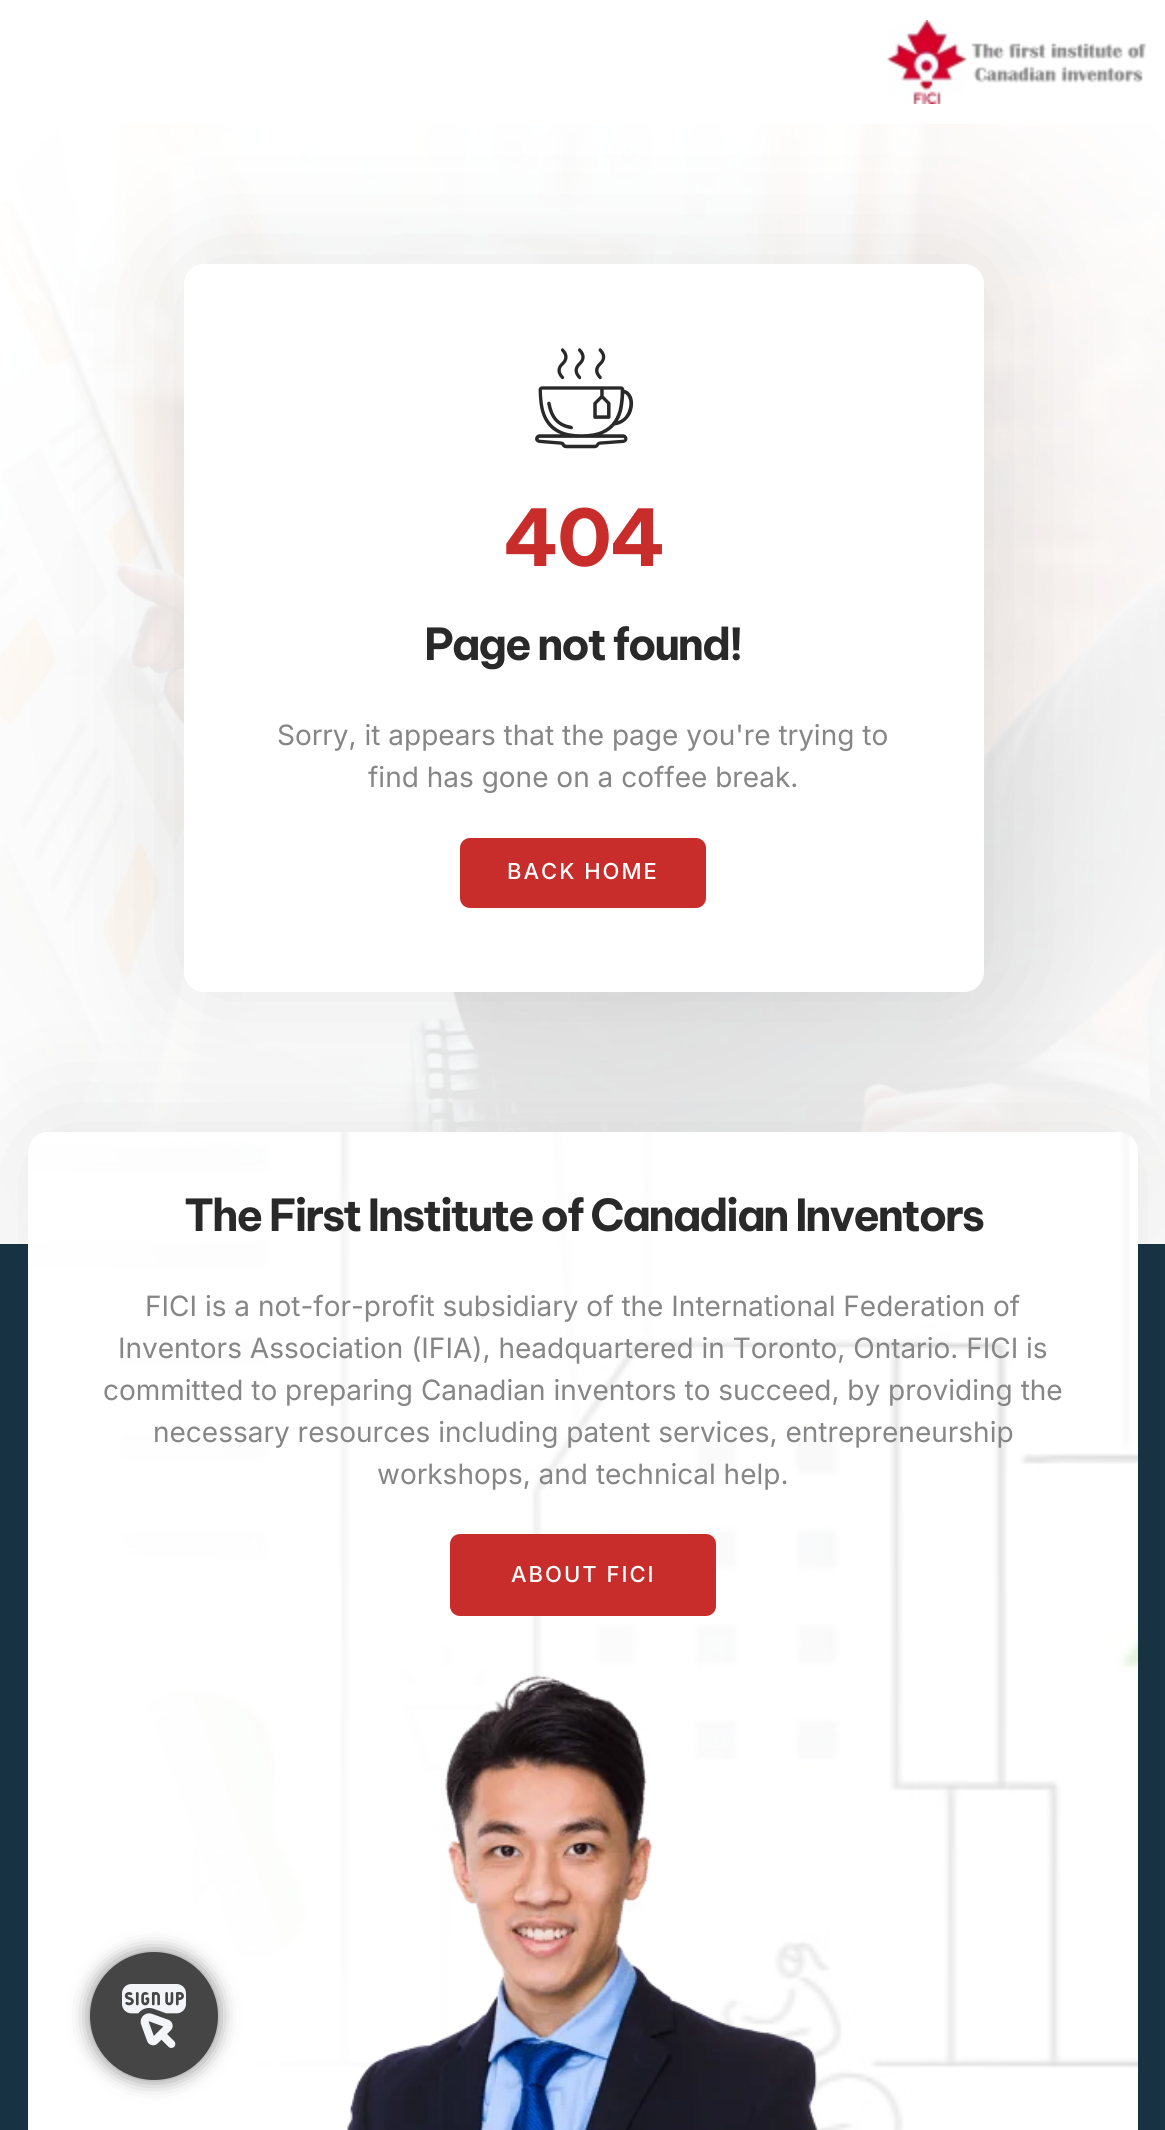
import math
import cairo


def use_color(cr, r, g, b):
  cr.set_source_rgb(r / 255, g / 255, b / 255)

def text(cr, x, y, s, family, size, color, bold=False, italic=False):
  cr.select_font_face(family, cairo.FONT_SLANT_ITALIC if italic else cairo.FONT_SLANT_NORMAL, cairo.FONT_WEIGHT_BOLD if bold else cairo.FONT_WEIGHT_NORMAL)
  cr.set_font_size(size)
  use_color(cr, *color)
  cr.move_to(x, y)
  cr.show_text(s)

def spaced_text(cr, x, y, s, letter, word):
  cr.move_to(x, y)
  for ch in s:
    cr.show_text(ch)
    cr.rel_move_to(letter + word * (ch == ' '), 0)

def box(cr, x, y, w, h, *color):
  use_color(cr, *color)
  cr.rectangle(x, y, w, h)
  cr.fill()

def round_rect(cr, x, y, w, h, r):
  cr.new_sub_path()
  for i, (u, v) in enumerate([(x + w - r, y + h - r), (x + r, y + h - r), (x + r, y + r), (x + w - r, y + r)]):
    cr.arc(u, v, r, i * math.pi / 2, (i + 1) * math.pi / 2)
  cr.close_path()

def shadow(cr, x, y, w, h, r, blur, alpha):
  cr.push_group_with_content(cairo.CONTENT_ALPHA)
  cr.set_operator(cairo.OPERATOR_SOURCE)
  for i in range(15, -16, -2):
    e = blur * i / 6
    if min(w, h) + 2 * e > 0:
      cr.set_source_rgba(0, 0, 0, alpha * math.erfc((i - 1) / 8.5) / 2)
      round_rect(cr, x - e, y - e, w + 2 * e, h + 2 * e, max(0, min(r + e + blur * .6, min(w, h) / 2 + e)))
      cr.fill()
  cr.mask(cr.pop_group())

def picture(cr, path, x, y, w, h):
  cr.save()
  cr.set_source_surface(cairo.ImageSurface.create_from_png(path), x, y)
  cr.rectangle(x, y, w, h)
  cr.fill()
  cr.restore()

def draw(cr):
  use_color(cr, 255, 255, 255)
  cr.paint()
  picture(cr, "img_01.png", 887, 20, 259, 84)
  picture(cr, "img_02.png", 0, 124, 1165, 1120)
  use_color(cr, 0, 0, 0)
  shadow(cr, 184, 264, 800, 728, 20, 60, 0.1)
  use_color(cr, 255, 255, 255)
  round_rect(cr, 184, 264, 800, 728, 20)
  cr.fill()
  picture(cr, "img_03.png", 535, 348, 99, 101)
  use_color(cr, 200, 45, 43)
  round_rect(cr, 460, 838, 246, 70, 10)
  cr.fill()
  box(cr, 0, 1244, 1165, 886, 24, 52, 68)
  use_color(cr, 0, 0, 0)
  shadow(cr, 28, 1132, 1110, 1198, 20, 60, 0.1)
  picture(cr, "img_04.png", 28, 1132, 1110, 998)
  gradient = cairo.LinearGradient(-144, 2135, 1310, 1605)
  gradient.add_color_stop_rgba(0.25, 1, 1, 1, 1)
  gradient.add_color_stop_rgba(1, 1, 1, 1, 0.8)
  cr.set_source(gradient)
  round_rect(cr, 28, 1132, 1110, 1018, 20)
  cr.fill()
  use_color(cr, 200, 45, 43)
  round_rect(cr, 450, 1534, 266, 82, 10)
  cr.fill()
  picture(cr, "img_05.png", 347, 1675, 472, 455)
  use_color(cr, 0, 0, 0)
  shadow(cr, 90, 1952, 128, 128, 64, 10, 0.5)
  use_color(cr, 69, 69, 69)
  cr.arc(154, 2016, 64, 0, 2 * math.pi)
  cr.fill()
  picture(cr, "img_06.png", 122, 1984, 64, 64)
  cr.select_font_face("Be Vietnam Pro", cairo.FONT_SLANT_NORMAL, cairo.FONT_WEIGHT_BOLD)
  cr.set_font_size(78)
  use_color(cr, 200, 45, 43)
  spaced_text(cr, 503, 566, "404", -2, 0)
  cr.set_font_size(44)
  use_color(cr, 41, 41, 41)
  spaced_text(cr, 424, 660, "Page not found!", -2.4, 0)
  text(cr, 277, 745, "Sorry, it appears that the page you're trying to", "Inter", 28, (134, 134, 134))
  text(cr, 368, 787, "find has gone on a coffee break.", "Inter", 28, (134, 134, 134))
  cr.select_font_face("Inter Medium")
  cr.set_font_size(22)
  use_color(cr, 255, 255, 255)
  spaced_text(cr, 507, 879, "BACK HOME", 2, 0)
  cr.select_font_face("Be Vietnam Pro", cairo.FONT_SLANT_NORMAL, cairo.FONT_WEIGHT_BOLD)
  cr.set_font_size(44)
  use_color(cr, 41, 41, 41)
  spaced_text(cr, 184, 1231, "The First Institute of Canadian Inventors", -2.4, 0)
  text(cr, 145, 1316, "FICI is a not-for-profit subsidiary of the International Federation of", "Inter", 28, (134, 134, 134))
  text(cr, 118, 1358, "Inventors Association (IFIA), headquartered in Toronto, Ontario. FICI is", "Inter", 28, (134, 134, 134))
  text(cr, 103, 1400, "committed to preparing Canadian inventors to succeed, by providing the", "Inter", 28, (134, 134, 134))
  text(cr, 153, 1442, "necessary resources including patent services, entrepreneurship", "Inter", 28, (134, 134, 134))
  text(cr, 377, 1484, "workshops, and technical help.", "Inter", 28, (134, 134, 134))
  cr.select_font_face("Inter Medium")
  cr.set_font_size(22)
  use_color(cr, 255, 255, 255)
  spaced_text(cr, 511, 1582, "ABOUT FICI", 2, 0)


surface = cairo.ImageSurface(cairo.FORMAT_RGB24, 1165, 2130)
cr = cairo.Context(surface)
options = cairo.FontOptions()
options.set_hint_metrics(cairo.HINT_METRICS_OFF)
options.set_hint_style(cairo.HINT_STYLE_NONE)
cr.set_font_options(options)
cr.set_miter_limit(4)
draw(cr)
surface.write_to_png("out.png")
